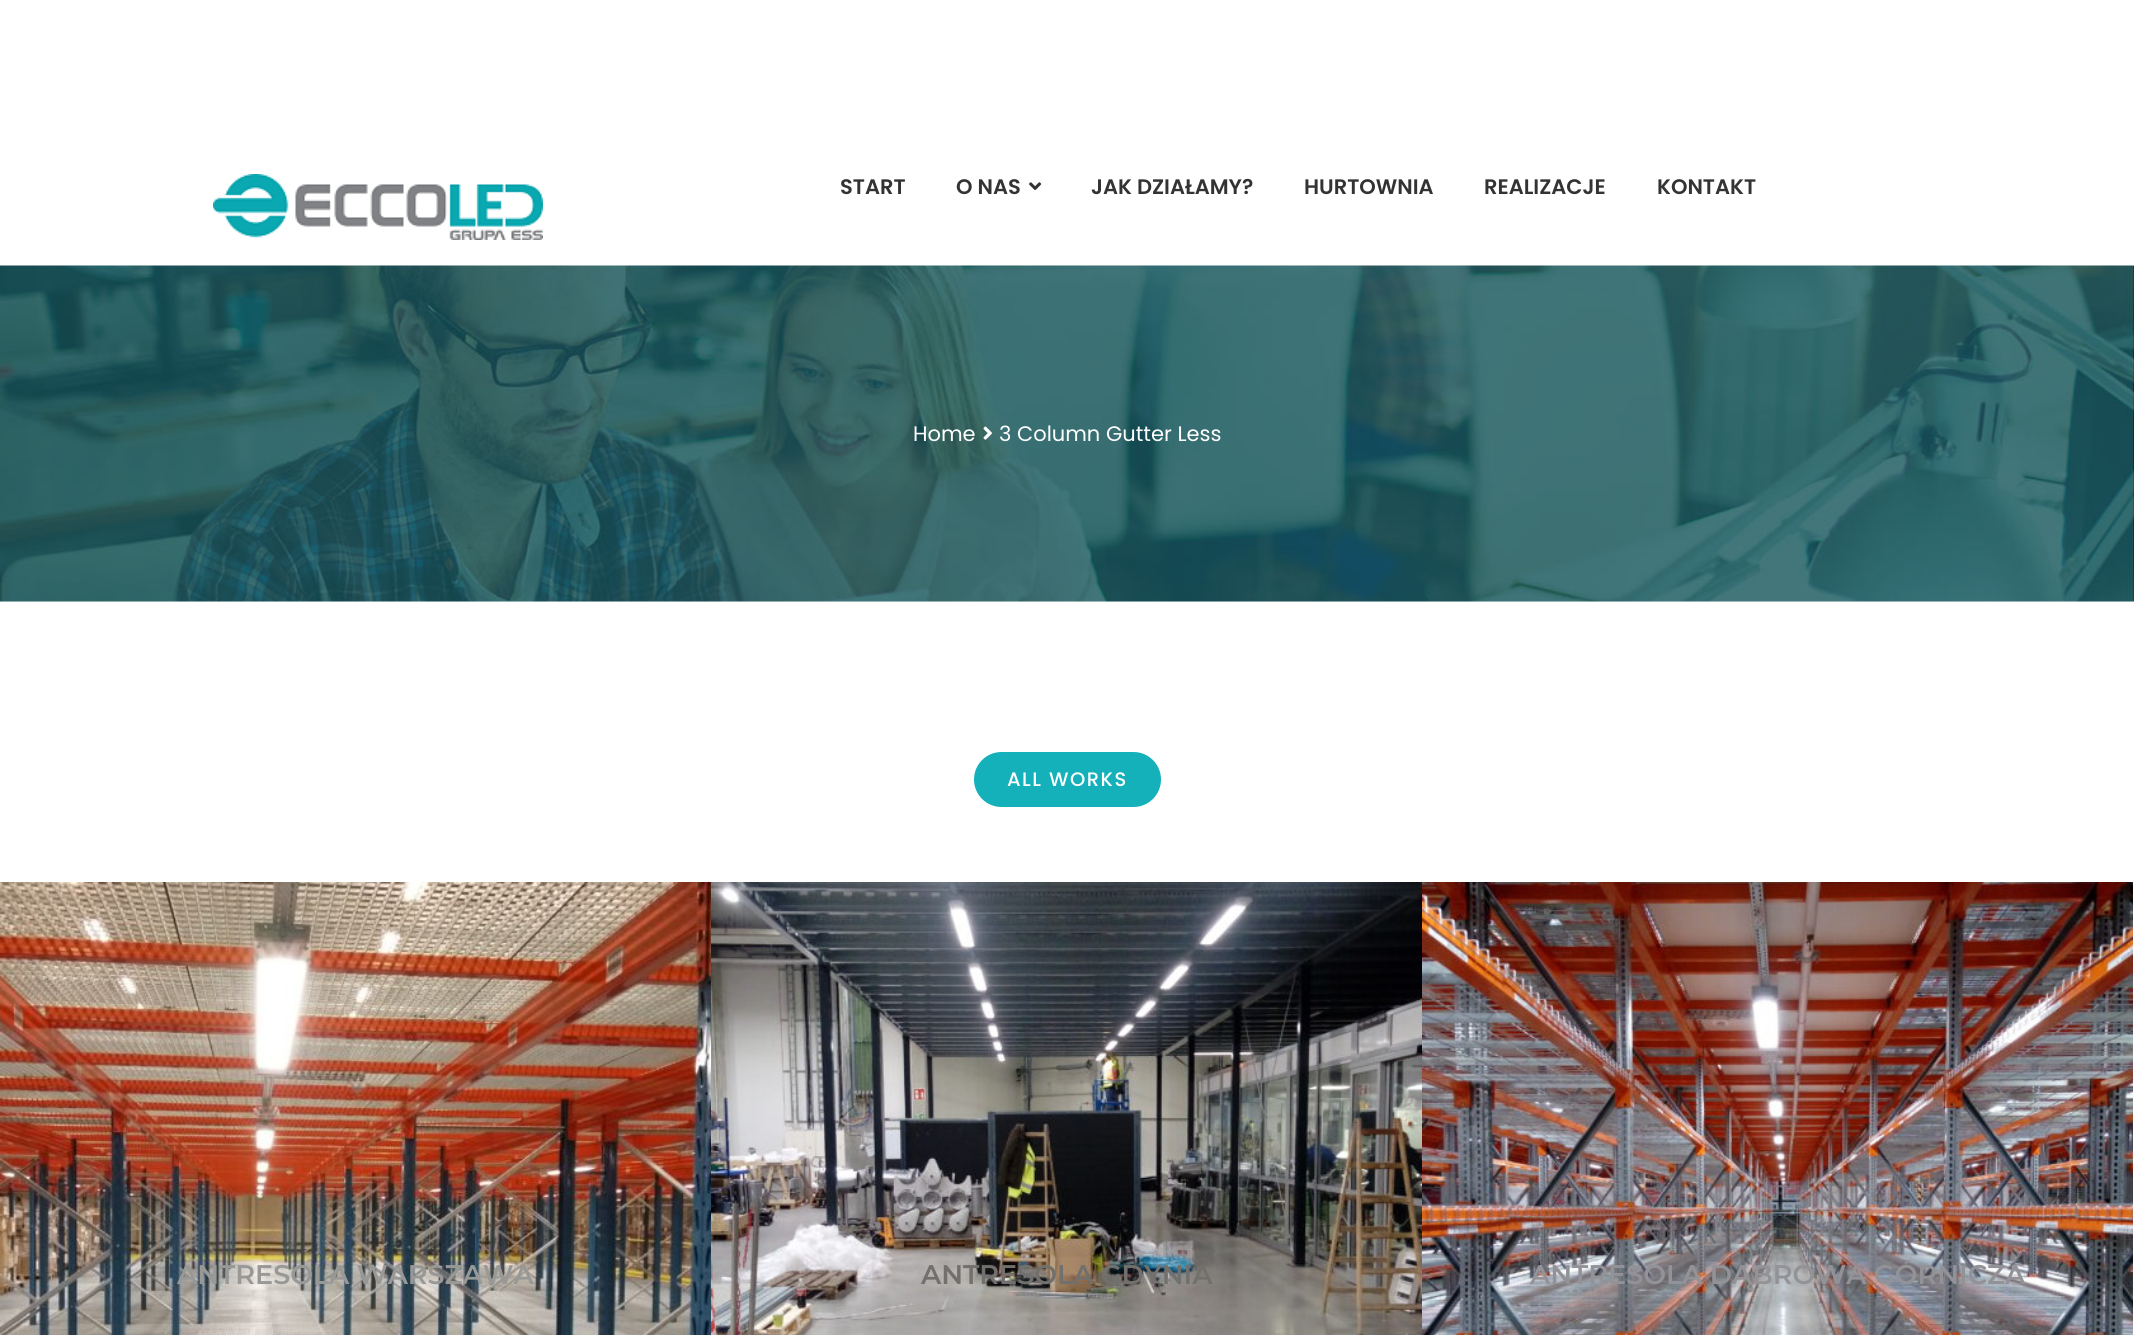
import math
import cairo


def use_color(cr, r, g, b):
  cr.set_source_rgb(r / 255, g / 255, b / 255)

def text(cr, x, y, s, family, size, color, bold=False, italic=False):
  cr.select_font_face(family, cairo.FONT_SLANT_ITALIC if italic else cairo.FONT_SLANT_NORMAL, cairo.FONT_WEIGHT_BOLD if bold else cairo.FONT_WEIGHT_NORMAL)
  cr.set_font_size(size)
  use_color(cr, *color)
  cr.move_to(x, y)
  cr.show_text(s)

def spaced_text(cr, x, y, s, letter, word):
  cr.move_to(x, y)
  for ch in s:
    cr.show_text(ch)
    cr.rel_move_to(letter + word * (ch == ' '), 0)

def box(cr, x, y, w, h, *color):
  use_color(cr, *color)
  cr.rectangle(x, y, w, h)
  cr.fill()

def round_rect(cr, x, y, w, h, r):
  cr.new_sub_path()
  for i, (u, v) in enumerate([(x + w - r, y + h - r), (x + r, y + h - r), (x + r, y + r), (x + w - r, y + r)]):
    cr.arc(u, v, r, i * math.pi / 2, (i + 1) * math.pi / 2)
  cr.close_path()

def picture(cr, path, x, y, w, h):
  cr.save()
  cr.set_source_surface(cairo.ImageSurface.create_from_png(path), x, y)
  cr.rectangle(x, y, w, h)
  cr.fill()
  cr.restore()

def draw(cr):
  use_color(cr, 255, 255, 255)
  cr.paint()
  picture(cr, "img_01.png", 213, 174, 330, 66)
  picture(cr, "img_02.png", 1029, 182, 13, 9)
  box(cr, 0, 601, 2134, 1, 247, 247, 247)
  picture(cr, "img_03.png", 0, 265, 2134, 337)
  picture(cr, "img_04.png", 983, 426, 9, 14)
  use_color(cr, 20, 177, 187)
  round_rect(cr, 975, 753, 185, 53, 26.5)
  cr.fill_preserve()
  cr.stroke()
  picture(cr, "img_05.png", 0, 882, 711, 453)
  picture(cr, "img_06.png", 711, 882, 711, 453)
  picture(cr, "img_07.png", 1422, 882, 711, 453)
  text(cr, 840, 194, "START", "Poppins SemiBold", 21, (51, 51, 51))
  text(cr, 956, 194, "O NAS", "Poppins SemiBold", 21, (51, 51, 51))
  text(cr, 1091, 194, "JAK DZIAŁAMY?", "Poppins SemiBold", 21, (51, 51, 51))
  text(cr, 1304, 194, "HURTOWNIA", "Poppins SemiBold", 21, (51, 51, 51))
  text(cr, 1484, 194, "REALIZACJE", "Poppins SemiBold", 21, (51, 51, 51))
  text(cr, 1657, 194, "KONTAKT", "Poppins SemiBold", 21, (51, 51, 51))
  text(cr, 913, 441, "Home", "Poppins", 21, (255, 255, 255))
  text(cr, 999, 441, "3 Column Gutter Less", "Poppins", 21, (255, 255, 255))
  cr.select_font_face("Poppins Medium")
  cr.set_font_size(19.5)
  spaced_text(cr, 1007, 786, "ALL WORKS", 1.5, 0)
  text(cr, 177, 1284, "ANTRESOLA WARSZAWA", "Montserrat SemiBold", 27, (152, 153, 151))
  text(cr, 921, 1284, "ANTRESOLA GDYNIA", "Montserrat SemiBold", 27, (114, 112, 108))
  text(cr, 1530, 1284, "ANTRESOLA DĄBROWA GÓRNICZA", "Montserrat SemiBold", 27, (146, 146, 151))


surface = cairo.ImageSurface(cairo.FORMAT_RGB24, 2134, 1335)
cr = cairo.Context(surface)
options = cairo.FontOptions()
options.set_hint_metrics(cairo.HINT_METRICS_OFF)
options.set_hint_style(cairo.HINT_STYLE_NONE)
cr.set_font_options(options)
cr.set_miter_limit(4)
draw(cr)
surface.write_to_png("out.png")
